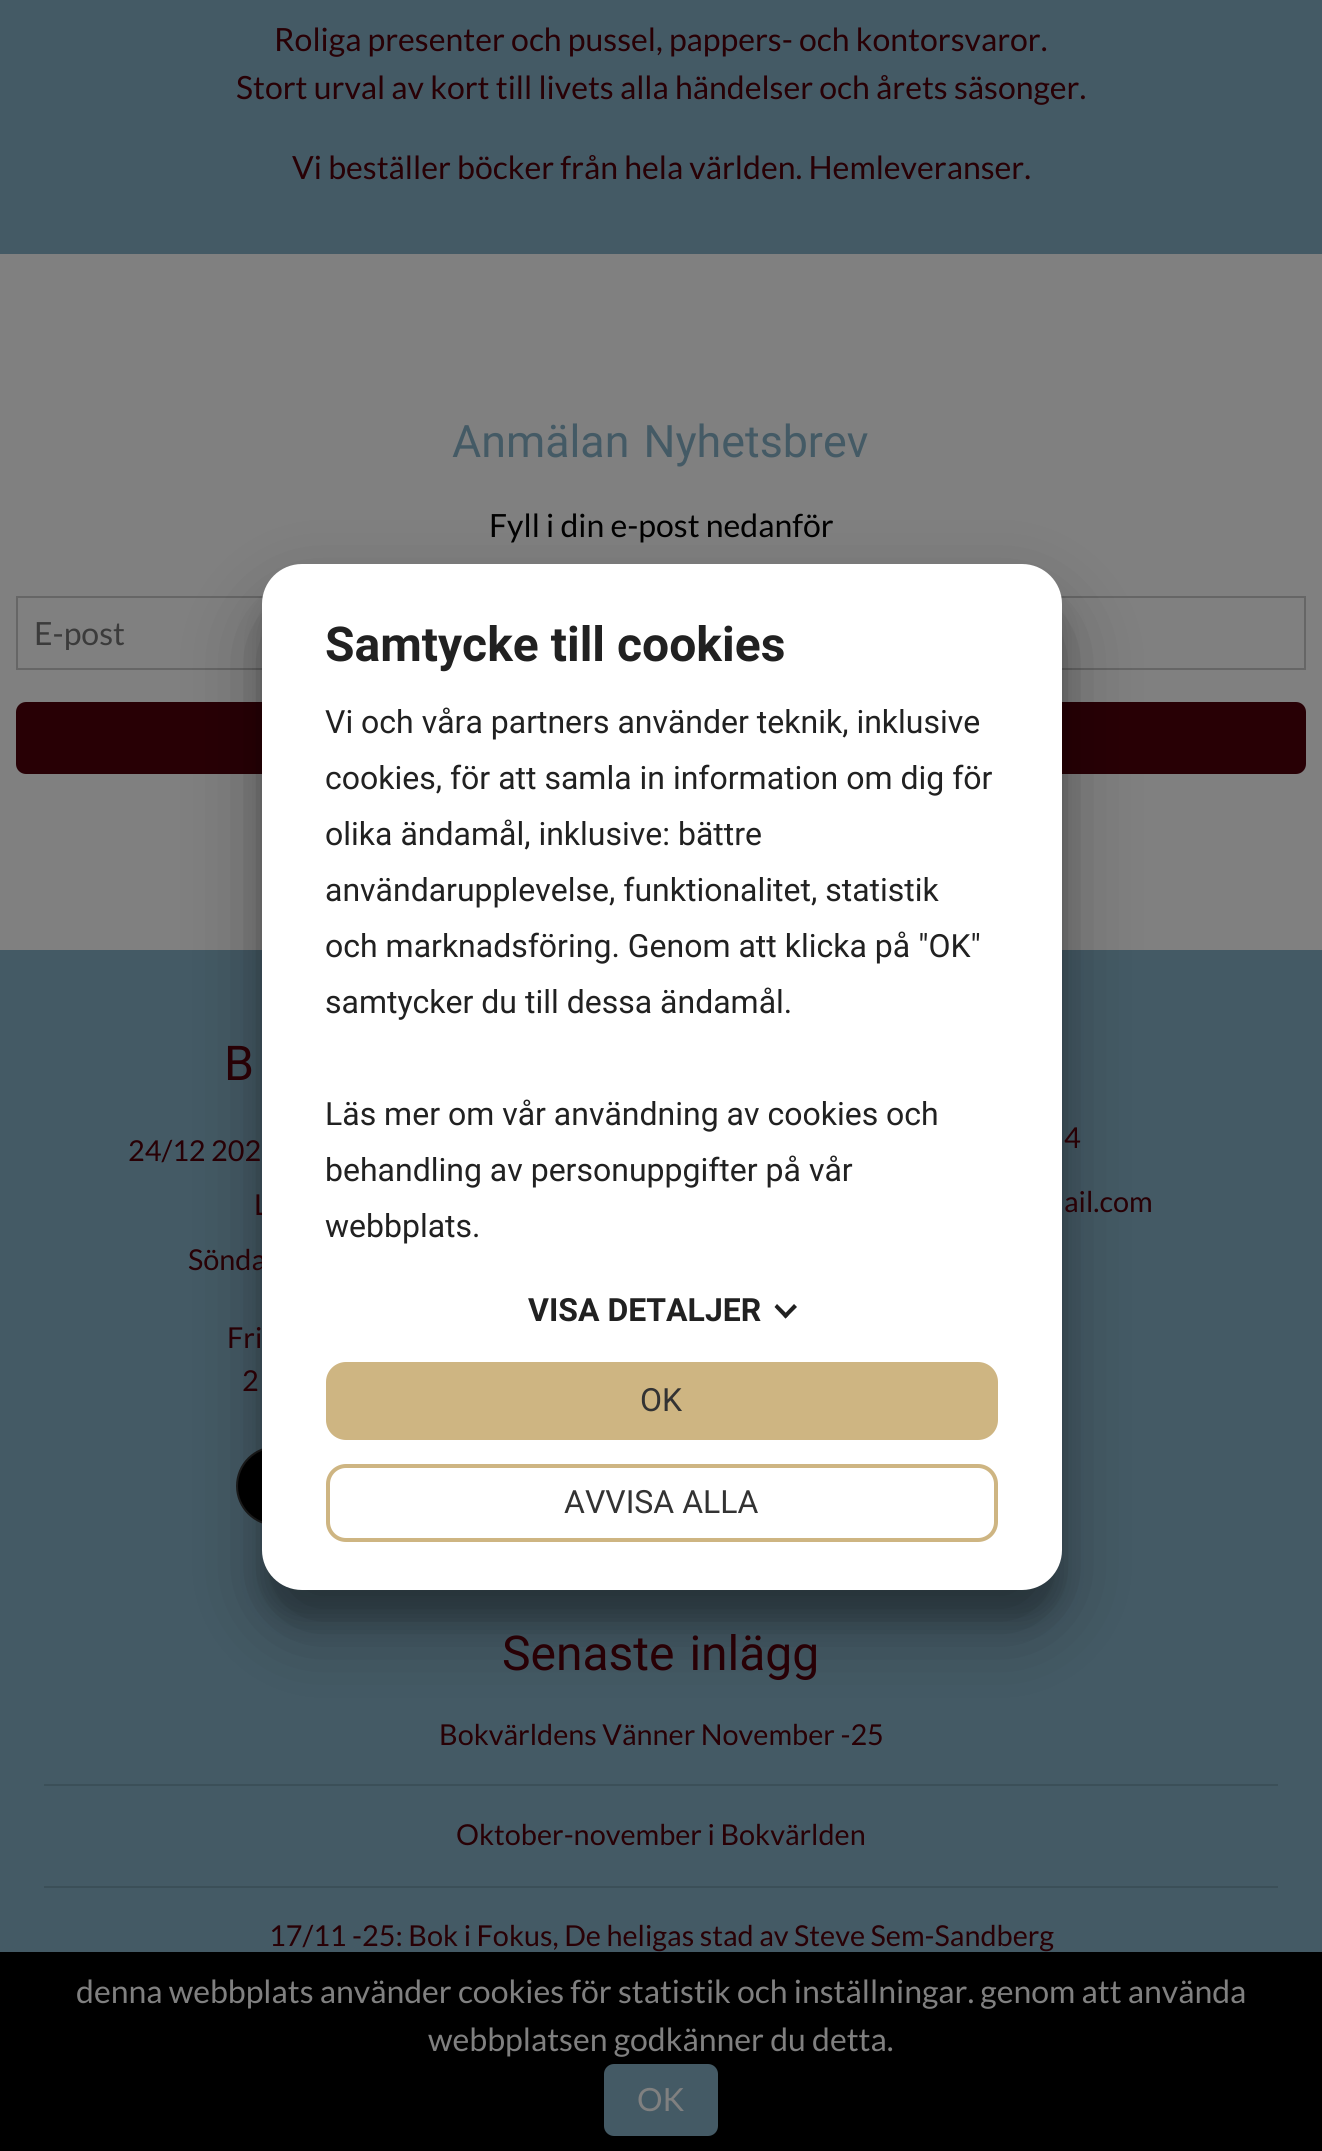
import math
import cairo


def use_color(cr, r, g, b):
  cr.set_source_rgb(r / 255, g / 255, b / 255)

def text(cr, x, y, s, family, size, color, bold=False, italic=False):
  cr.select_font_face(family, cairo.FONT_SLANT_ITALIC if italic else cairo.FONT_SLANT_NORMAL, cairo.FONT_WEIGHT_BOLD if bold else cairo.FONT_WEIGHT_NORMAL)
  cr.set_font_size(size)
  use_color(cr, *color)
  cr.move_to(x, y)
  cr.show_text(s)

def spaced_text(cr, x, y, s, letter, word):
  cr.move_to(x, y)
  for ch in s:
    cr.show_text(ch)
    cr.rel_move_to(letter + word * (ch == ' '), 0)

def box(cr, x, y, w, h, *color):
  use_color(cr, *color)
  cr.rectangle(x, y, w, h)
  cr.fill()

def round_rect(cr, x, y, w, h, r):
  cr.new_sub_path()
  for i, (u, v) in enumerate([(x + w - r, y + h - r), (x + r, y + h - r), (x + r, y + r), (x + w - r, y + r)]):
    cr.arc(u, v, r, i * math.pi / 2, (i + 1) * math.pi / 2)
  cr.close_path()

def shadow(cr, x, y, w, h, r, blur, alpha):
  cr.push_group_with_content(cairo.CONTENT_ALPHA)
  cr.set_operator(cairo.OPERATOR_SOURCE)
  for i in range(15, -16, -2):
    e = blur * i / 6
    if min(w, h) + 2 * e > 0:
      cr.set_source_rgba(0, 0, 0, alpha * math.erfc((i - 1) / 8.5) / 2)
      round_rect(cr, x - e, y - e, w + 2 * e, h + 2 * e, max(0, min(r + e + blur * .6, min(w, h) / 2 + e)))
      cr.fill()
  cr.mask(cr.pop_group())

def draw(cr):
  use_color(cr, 128, 128, 128)
  cr.paint()
  box(cr, 0, 0, 1322, 254, 68, 90, 101)
  cr.rectangle(17, 597, 1288, 72)
  use_color(cr, 102, 102, 102)
  cr.stroke()
  use_color(cr, 40, 0, 5)
  round_rect(cr, 17, 703, 1288, 70, 9)
  cr.fill_preserve()
  cr.stroke()
  box(cr, 0, 950, 1322, 1002, 68, 90, 101)
  use_color(cr, 0, 0, 0)
  cr.arc(276, 1486, 39, 0, 2 * math.pi)
  cr.fill_preserve()
  use_color(cr, 28, 28, 28)
  cr.stroke()
  use_color(cr, 0, 0, 0)
  shadow(cr, 262, 594, 800, 1026, 40, 12, 0.22)
  shadow(cr, 262, 602, 800, 1026, 40, 38, 0.3)
  box(cr, 44, 1784, 1234, 2, 59, 79, 88)
  box(cr, 44, 1886, 1234, 2, 59, 79, 88)
  box(cr, 0, 1952, 1322, 199, 0, 0, 0)
  use_color(cr, 68, 90, 101)
  round_rect(cr, 605, 2065, 112, 70, 9)
  cr.fill_preserve()
  cr.stroke()
  text(cr, 274, 51, "Roliga presenter och pussel, pappers- och kontorsvaror.", "Lato", 32, (40, 0, 5))
  text(cr, 236, 99, "Stort urval av kort till livets alla händelser och årets säsonger.", "Lato", 32, (40, 0, 5))
  text(cr, 292, 179, "Vi beställer böcker från hela världen. Hemleveranser.", "Lato", 32, (40, 0, 5))
  cr.select_font_face("Roboto")
  cr.set_font_size(44.75)
  use_color(cr, 68, 90, 101)
  spaced_text(cr, 452, 457, "Anmälan Nyhetsbrev", 0, 3)
  text(cr, 489, 537, "Fyll i din e-post nedanför", "Lato", 32, (0, 0, 0))
  cr.save()
  cr.rectangle(34, 612, 1254, 38)
  cr.clip()
  text(cr, 34, 645, "E-post", "Lato", 32, (59, 59, 59))
  cr.restore()
  text(cr, 224, 1080, "B", "Roboto", 48, (40, 0, 5))
  text(cr, 128, 1161, "24/12 202", "Lato", 28.8, (40, 0, 5))
  text(cr, 254, 1215, "L", "Lato", 28.8, (40, 0, 5))
  text(cr, 188, 1270, "Sönda", "Lato", 28.8, (40, 0, 5))
  use_color(cr, 255, 255, 255)
  round_rect(cr, 262, 564, 800, 1026, 40)
  cr.fill()
  use_color(cr, 206, 181, 130)
  round_rect(cr, 328, 1364, 668, 74, 18)
  cr.fill_preserve()
  cr.set_line_width(4)
  cr.stroke()
  text(cr, 640, 1411, "OK", "Roboto", 32, (51, 51, 51))
  round_rect(cr, 328, 1466, 668, 74, 18)
  use_color(cr, 206, 181, 130)
  cr.stroke()
  text(cr, 564, 1513, "AVVISA ALLA", "Roboto", 32, (51, 51, 51))
  use_color(cr, 33, 33, 33)
  cr.new_path()
  cr.move_to(794, 1304)
  cr.line_to(797, 1307)
  cr.line_to(785.5, 1318.5)
  cr.line_to(783, 1315.5)
  cr.close_path()
  cr.fill()
  cr.new_path()
  cr.move_to(777, 1304)
  cr.line_to(788.5, 1315.5)
  cr.line_to(785.5, 1318.5)
  cr.line_to(774.5, 1307)
  cr.close_path()
  cr.fill()
  text(cr, 528, 1321, "VISA DETALJER", "Roboto", 32, (33, 33, 33), bold=True)
  text(cr, 325, 1237, "webbplats.", "Roboto", 32, (33, 33, 33))
  text(cr, 325, 1181, "behandling av personuppgifter på vår", "Roboto", 32, (33, 33, 33))
  text(cr, 325, 1125, "Läs mer om vår användning av cookies och", "Roboto", 32, (33, 33, 33))
  text(cr, 325, 1013, "samtycker du till dessa ändamål.", "Roboto", 32, (33, 33, 33))
  text(cr, 325, 957, "och marknadsföring. Genom att klicka på \"OK\"", "Roboto", 32, (33, 33, 33))
  text(cr, 325, 901, "användarupplevelse, funktionalitet, statistik", "Roboto", 32, (33, 33, 33))
  text(cr, 325, 845, "olika ändamål, inklusive: bättre", "Roboto", 32, (33, 33, 33))
  text(cr, 325, 789, "cookies, för att samla in information om dig för", "Roboto", 32, (33, 33, 33))
  text(cr, 325, 733, "Vi och våra partners använder teknik, inklusive", "Roboto", 32, (33, 33, 33))
  text(cr, 325, 661, "Samtycke till cookies", "Roboto", 48, (33, 33, 33), bold=True)
  text(cr, 227, 1348, "Fri", "Lato", 28.8, (40, 0, 5))
  text(cr, 242, 1391, "2", "Lato", 28.8, (40, 0, 5))
  text(cr, 1064, 1148, "4", "Lato", 28.8, (40, 0, 5))
  text(cr, 1064, 1212, "ail.com", "Lato", 28.8, (40, 0, 5))
  cr.select_font_face("Roboto")
  cr.set_font_size(48)
  spaced_text(cr, 502, 1670, "Senaste inlägg", 0, 3)
  text(cr, 439, 1745, "Bokvärldens Vänner November -25", "Lato", 28.8, (40, 0, 5))
  text(cr, 456, 1845, "Oktober-november i Bokvärlden", "Lato", 28.8, (40, 0, 5))
  text(cr, 269, 1946, "17/11 -25: Bok i Fokus, De heligas stad av Steve Sem-Sandberg", "Lato", 28.8, (40, 0, 5))
  text(cr, 76, 2003, "denna webbplats använder cookies för statistik och inställningar. genom att använda", "Lato", 32, (128, 128, 128))
  text(cr, 428, 2051, "webbplatsen godkänner du detta.", "Lato", 32, (128, 128, 128))
  text(cr, 637, 2111, "OK", "Lato", 32, (128, 128, 128))


surface = cairo.ImageSurface(cairo.FORMAT_RGB24, 1322, 2151)
cr = cairo.Context(surface)
options = cairo.FontOptions()
options.set_hint_metrics(cairo.HINT_METRICS_OFF)
options.set_hint_style(cairo.HINT_STYLE_NONE)
cr.set_font_options(options)
cr.set_miter_limit(4)
draw(cr)
surface.write_to_png("out.png")
